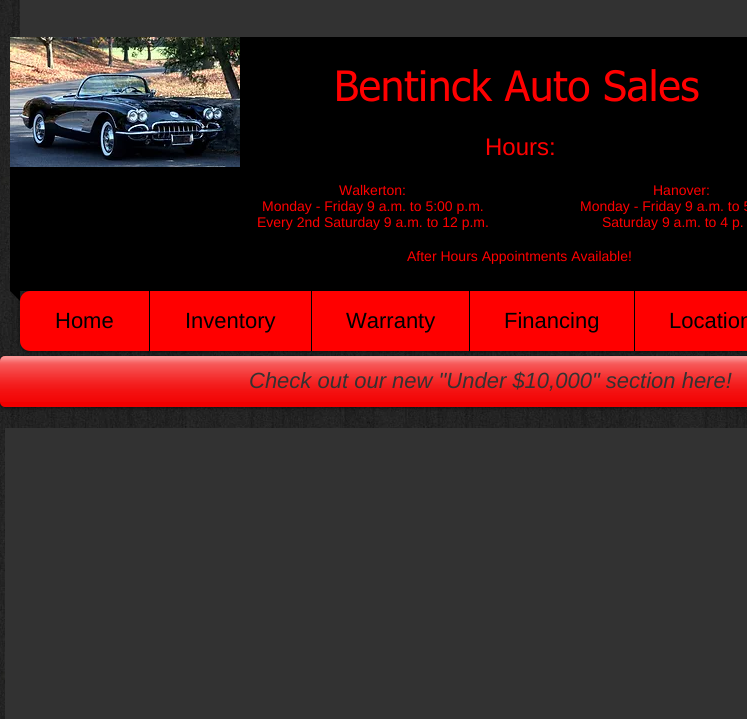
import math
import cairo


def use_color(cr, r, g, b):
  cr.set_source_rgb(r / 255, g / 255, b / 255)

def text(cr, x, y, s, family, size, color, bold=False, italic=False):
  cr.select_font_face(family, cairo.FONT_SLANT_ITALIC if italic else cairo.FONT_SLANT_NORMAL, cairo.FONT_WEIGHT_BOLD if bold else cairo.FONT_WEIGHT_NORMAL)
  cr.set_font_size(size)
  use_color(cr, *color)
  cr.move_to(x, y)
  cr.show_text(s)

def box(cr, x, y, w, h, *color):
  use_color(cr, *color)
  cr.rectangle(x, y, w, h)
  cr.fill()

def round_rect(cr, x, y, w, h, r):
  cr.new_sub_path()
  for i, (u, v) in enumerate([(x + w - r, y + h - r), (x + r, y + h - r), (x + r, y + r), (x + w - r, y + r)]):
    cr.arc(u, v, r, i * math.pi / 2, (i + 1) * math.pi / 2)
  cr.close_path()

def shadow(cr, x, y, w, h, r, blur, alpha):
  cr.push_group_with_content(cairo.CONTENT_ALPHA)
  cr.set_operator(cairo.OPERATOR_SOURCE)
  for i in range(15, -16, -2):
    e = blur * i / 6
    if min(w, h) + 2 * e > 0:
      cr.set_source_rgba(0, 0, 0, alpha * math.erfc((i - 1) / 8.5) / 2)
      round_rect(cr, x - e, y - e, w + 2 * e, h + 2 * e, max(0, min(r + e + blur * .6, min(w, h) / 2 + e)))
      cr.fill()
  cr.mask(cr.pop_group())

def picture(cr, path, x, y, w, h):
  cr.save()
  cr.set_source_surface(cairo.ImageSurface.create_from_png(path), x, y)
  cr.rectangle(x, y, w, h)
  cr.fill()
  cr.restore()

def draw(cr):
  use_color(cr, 255, 255, 255)
  cr.paint()
  picture(cr, "img_01.png", 0, 0, 747, 719)
  box(cr, 20, 0, 727, 37, 50, 50, 50)
  box(cr, 10, 37, 737, 254, 0, 0, 0)
  picture(cr, "img_02.png", 10, 37, 230, 130)
  cr.new_path()
  cr.move_to(10, 291)
  cr.line_to(20, 291)
  cr.line_to(20, 301)
  cr.close_path()
  cr.fill()
  use_color(cr, 0, 0, 0)
  shadow(cr, 20, 292, 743, 60, 10, 2, 0.6)
  use_color(cr, 255, 0, 0)
  round_rect(cr, 20, 291, 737, 60, 10)
  cr.fill()
  box(cr, 149, 291, 1, 60, 0, 0, 0)
  box(cr, 311, 291, 1, 60, 0, 0, 0)
  box(cr, 469, 291, 1, 60, 0, 0, 0)
  box(cr, 634, 291, 1, 60, 0, 0, 0)
  use_color(cr, 0, 0, 0)
  shadow(cr, 0, 357, 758, 51, 5, 2, 0.6)
  use_color(cr, 242, 0, 0)
  round_rect(cr, 0, 356, 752, 51, 5)
  cr.fill()
  picture(cr, "img_03.png", 0, 356, 747, 46)
  box(cr, 5, 428, 742, 291, 50, 50, 50)
  text(cr, 334, 101, "Bentinck Auto Sales", "tahoma", 42, (255, 0, 0))
  text(cr, 485, 155, "Hours:", "Liberation Sans", 24, (255, 0, 0))
  text(cr, 339, 195, "Walkerton:", "Liberation Sans", 14, (255, 0, 0))
  text(cr, 262, 211, "Monday - Friday 9 a.m. to 5:00 p.m.", "Liberation Sans", 14, (255, 0, 0))
  text(cr, 257, 227, "Every 2nd Saturday 9 a.m. to 12 p.m.", "Liberation Sans", 14, (255, 0, 0))
  text(cr, 653, 195, "Hanover:", "Liberation Sans", 14, (255, 0, 0))
  text(cr, 580, 211, "Monday - Friday 9 a.m. to 5", "Liberation Sans", 14, (255, 0, 0))
  text(cr, 602, 227, "Saturday 9 a.m. to 4 p.", "Liberation Sans", 14, (255, 0, 0))
  text(cr, 407, 261, "After Hours Appointments Available!", "Liberation Sans", 14, (255, 0, 0))
  text(cr, 55, 328, "Home", "Liberation Sans", 22, (0, 0, 0))
  text(cr, 185, 328, "Inventory", "Liberation Sans", 22, (0, 0, 0))
  text(cr, 346, 328, "Warranty", "Liberation Sans", 22, (0, 0, 0))
  text(cr, 504, 328, "Financing", "Liberation Sans", 22, (0, 0, 0))
  text(cr, 669, 328, "Location", "Liberation Sans", 22, (0, 0, 0))
  text(cr, 249, 388, "Check out our new \"Under $10,000\" section here!", "Liberation Sans", 22, (53, 49, 49), italic=True)


surface = cairo.ImageSurface(cairo.FORMAT_RGB24, 747, 719)
cr = cairo.Context(surface)
options = cairo.FontOptions()
options.set_hint_metrics(cairo.HINT_METRICS_OFF)
options.set_hint_style(cairo.HINT_STYLE_NONE)
cr.set_font_options(options)
cr.set_miter_limit(4)
draw(cr)
surface.write_to_png("out.png")
